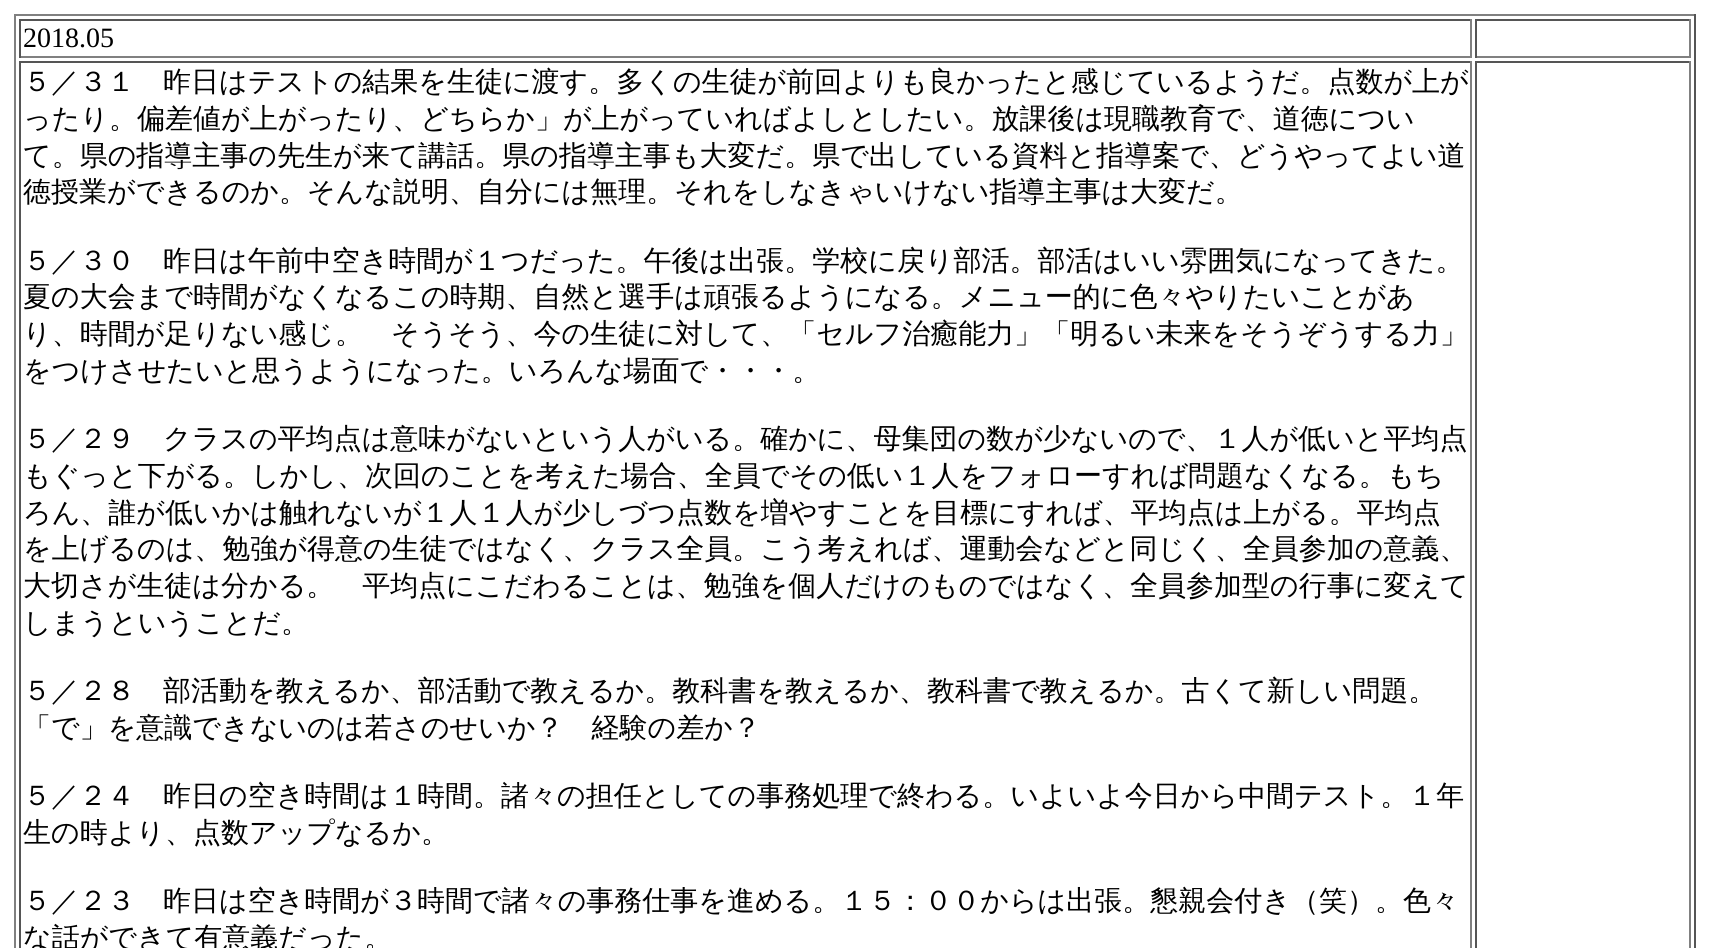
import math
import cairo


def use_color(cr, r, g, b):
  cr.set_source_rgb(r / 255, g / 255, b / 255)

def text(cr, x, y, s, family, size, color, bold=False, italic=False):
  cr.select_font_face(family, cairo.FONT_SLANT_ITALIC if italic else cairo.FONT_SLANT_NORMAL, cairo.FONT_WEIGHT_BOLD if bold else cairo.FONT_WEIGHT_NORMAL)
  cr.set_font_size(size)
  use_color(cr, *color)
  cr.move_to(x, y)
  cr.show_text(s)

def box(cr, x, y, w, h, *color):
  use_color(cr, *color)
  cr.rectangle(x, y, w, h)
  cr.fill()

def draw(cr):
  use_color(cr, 255, 255, 255)
  cr.paint()
  box(cr, 14, 14, 1682, 2, 128, 128, 128)
  box(cr, 1694, 14, 2, 934, 85, 85, 85)
  box(cr, 14, 14, 2, 934, 128, 128, 128)
  box(cr, 19, 19, 1453, 2, 85, 85, 85)
  box(cr, 1470, 19, 2, 39, 128, 128, 128)
  box(cr, 19, 56, 1453, 2, 128, 128, 128)
  box(cr, 19, 19, 2, 39, 85, 85, 85)
  box(cr, 1475, 19, 216, 2, 85, 85, 85)
  box(cr, 1689, 19, 2, 39, 128, 128, 128)
  box(cr, 1475, 56, 216, 2, 128, 128, 128)
  box(cr, 1475, 19, 2, 39, 85, 85, 85)
  box(cr, 19, 61, 1453, 2, 85, 85, 85)
  box(cr, 1470, 61, 2, 887, 128, 128, 128)
  box(cr, 19, 61, 2, 887, 85, 85, 85)
  box(cr, 1475, 61, 216, 2, 85, 85, 85)
  box(cr, 1689, 61, 2, 887, 128, 128, 128)
  box(cr, 1475, 61, 2, 887, 85, 85, 85)
  text(cr, 23, 47, "2018.05", "Liberation Serif", 28, (0, 0, 0))
  text(cr, 23, 91, "５／３１　昨日はテストの結果を生徒に渡す。多くの生徒が前回よりも良かったと感じているようだ。点数が上が", "WenQuanYi Zen Hei Medium", 28, (0, 0, 0))
  text(cr, 23, 128, "ったり。偏差値が上がったり、どちらか」が上がっていればよしとしたい。放課後は現職教育で、道徳につい", "WenQuanYi Zen Hei Medium", 28, (0, 0, 0))
  text(cr, 23, 165, "て。県の指導主事の先生が来て講話。県の指導主事も大変だ。県で出している資料と指導案で、どうやってよい道", "WenQuanYi Zen Hei Medium", 28, (0, 0, 0))
  text(cr, 23, 201, "徳授業ができるのか。そんな説明、自分には無理。それをしなきゃいけない指導主事は大変だ。", "WenQuanYi Zen Hei Medium", 28, (0, 0, 0))
  text(cr, 23, 270, "５／３０　昨日は午前中空き時間が１つだった。午後は出張。学校に戻り部活。部活はいい雰囲気になってきた。", "WenQuanYi Zen Hei Medium", 28, (0, 0, 0))
  text(cr, 23, 306, "夏の大会まで時間がなくなるこの時期、自然と選手は頑張るようになる。メニュー的に色々やりたいことがあ", "WenQuanYi Zen Hei Medium", 28, (0, 0, 0))
  text(cr, 23, 343, "り、時間が足りない感じ。　そうそう、今の生徒に対して、「セルフ治癒能力」「明るい未来をそうぞうする力」", "WenQuanYi Zen Hei Medium", 28, (0, 0, 0))
  text(cr, 23, 380, "をつけさせたいと思うようになった。いろんな場面で・・・。", "WenQuanYi Zen Hei Medium", 28, (0, 0, 0))
  text(cr, 23, 448, "５／２９　クラスの平均点は意味がないという人がいる。確かに、母集団の数が少ないので、１人が低いと平均点", "WenQuanYi Zen Hei Medium", 28, (0, 0, 0))
  text(cr, 23, 485, "もぐっと下がる。しかし、次回のことを考えた場合、全員でその低い１人をフォローすれば問題なくなる。もち", "WenQuanYi Zen Hei Medium", 28, (0, 0, 0))
  text(cr, 23, 522, "ろん、誰が低いかは触れないが１人１人が少しづつ点数を増やすことを目標にすれば、平均点は上がる。平均点", "WenQuanYi Zen Hei Medium", 28, (0, 0, 0))
  text(cr, 23, 558, "を上げるのは、勉強が得意の生徒ではなく、クラス全員。こう考えれば、運動会などと同じく、全員参加の意義、", "WenQuanYi Zen Hei Medium", 28, (0, 0, 0))
  text(cr, 23, 595, "大切さが生徒は分かる。　平均点にこだわることは、勉強を個人だけのものではなく、全員参加型の行事に変えて", "WenQuanYi Zen Hei Medium", 28, (0, 0, 0))
  text(cr, 23, 632, "しまうということだ。", "WenQuanYi Zen Hei Medium", 28, (0, 0, 0))
  text(cr, 23, 700, "５／２８　部活動を教えるか、部活動で教えるか。教科書を教えるか、教科書で教えるか。古くて新しい問題。", "WenQuanYi Zen Hei Medium", 28, (0, 0, 0))
  text(cr, 23, 737, "「で」を意識できないのは若さのせいか？　経験の差か？", "WenQuanYi Zen Hei Medium", 28, (0, 0, 0))
  text(cr, 23, 805, "５／２４　昨日の空き時間は１時間。諸々の担任としての事務処理で終わる。いよいよ今日から中間テスト。１年", "WenQuanYi Zen Hei Medium", 28, (0, 0, 0))
  text(cr, 23, 842, "生の時より、点数アップなるか。", "WenQuanYi Zen Hei Medium", 28, (0, 0, 0))
  text(cr, 23, 910, "５／２３　昨日は空き時間が３時間で諸々の事務仕事を進める。１５：００からは出張。懇親会付き（笑）。色々", "WenQuanYi Zen Hei Medium", 28, (0, 0, 0))
  text(cr, 23, 947, "な話ができて有意義だった。", "WenQuanYi Zen Hei Medium", 28, (0, 0, 0))


surface = cairo.ImageSurface(cairo.FORMAT_RGB24, 1709, 948)
cr = cairo.Context(surface)
options = cairo.FontOptions()
options.set_hint_metrics(cairo.HINT_METRICS_OFF)
options.set_hint_style(cairo.HINT_STYLE_NONE)
cr.set_font_options(options)
cr.set_miter_limit(4)
draw(cr)
surface.write_to_png("out.png")
